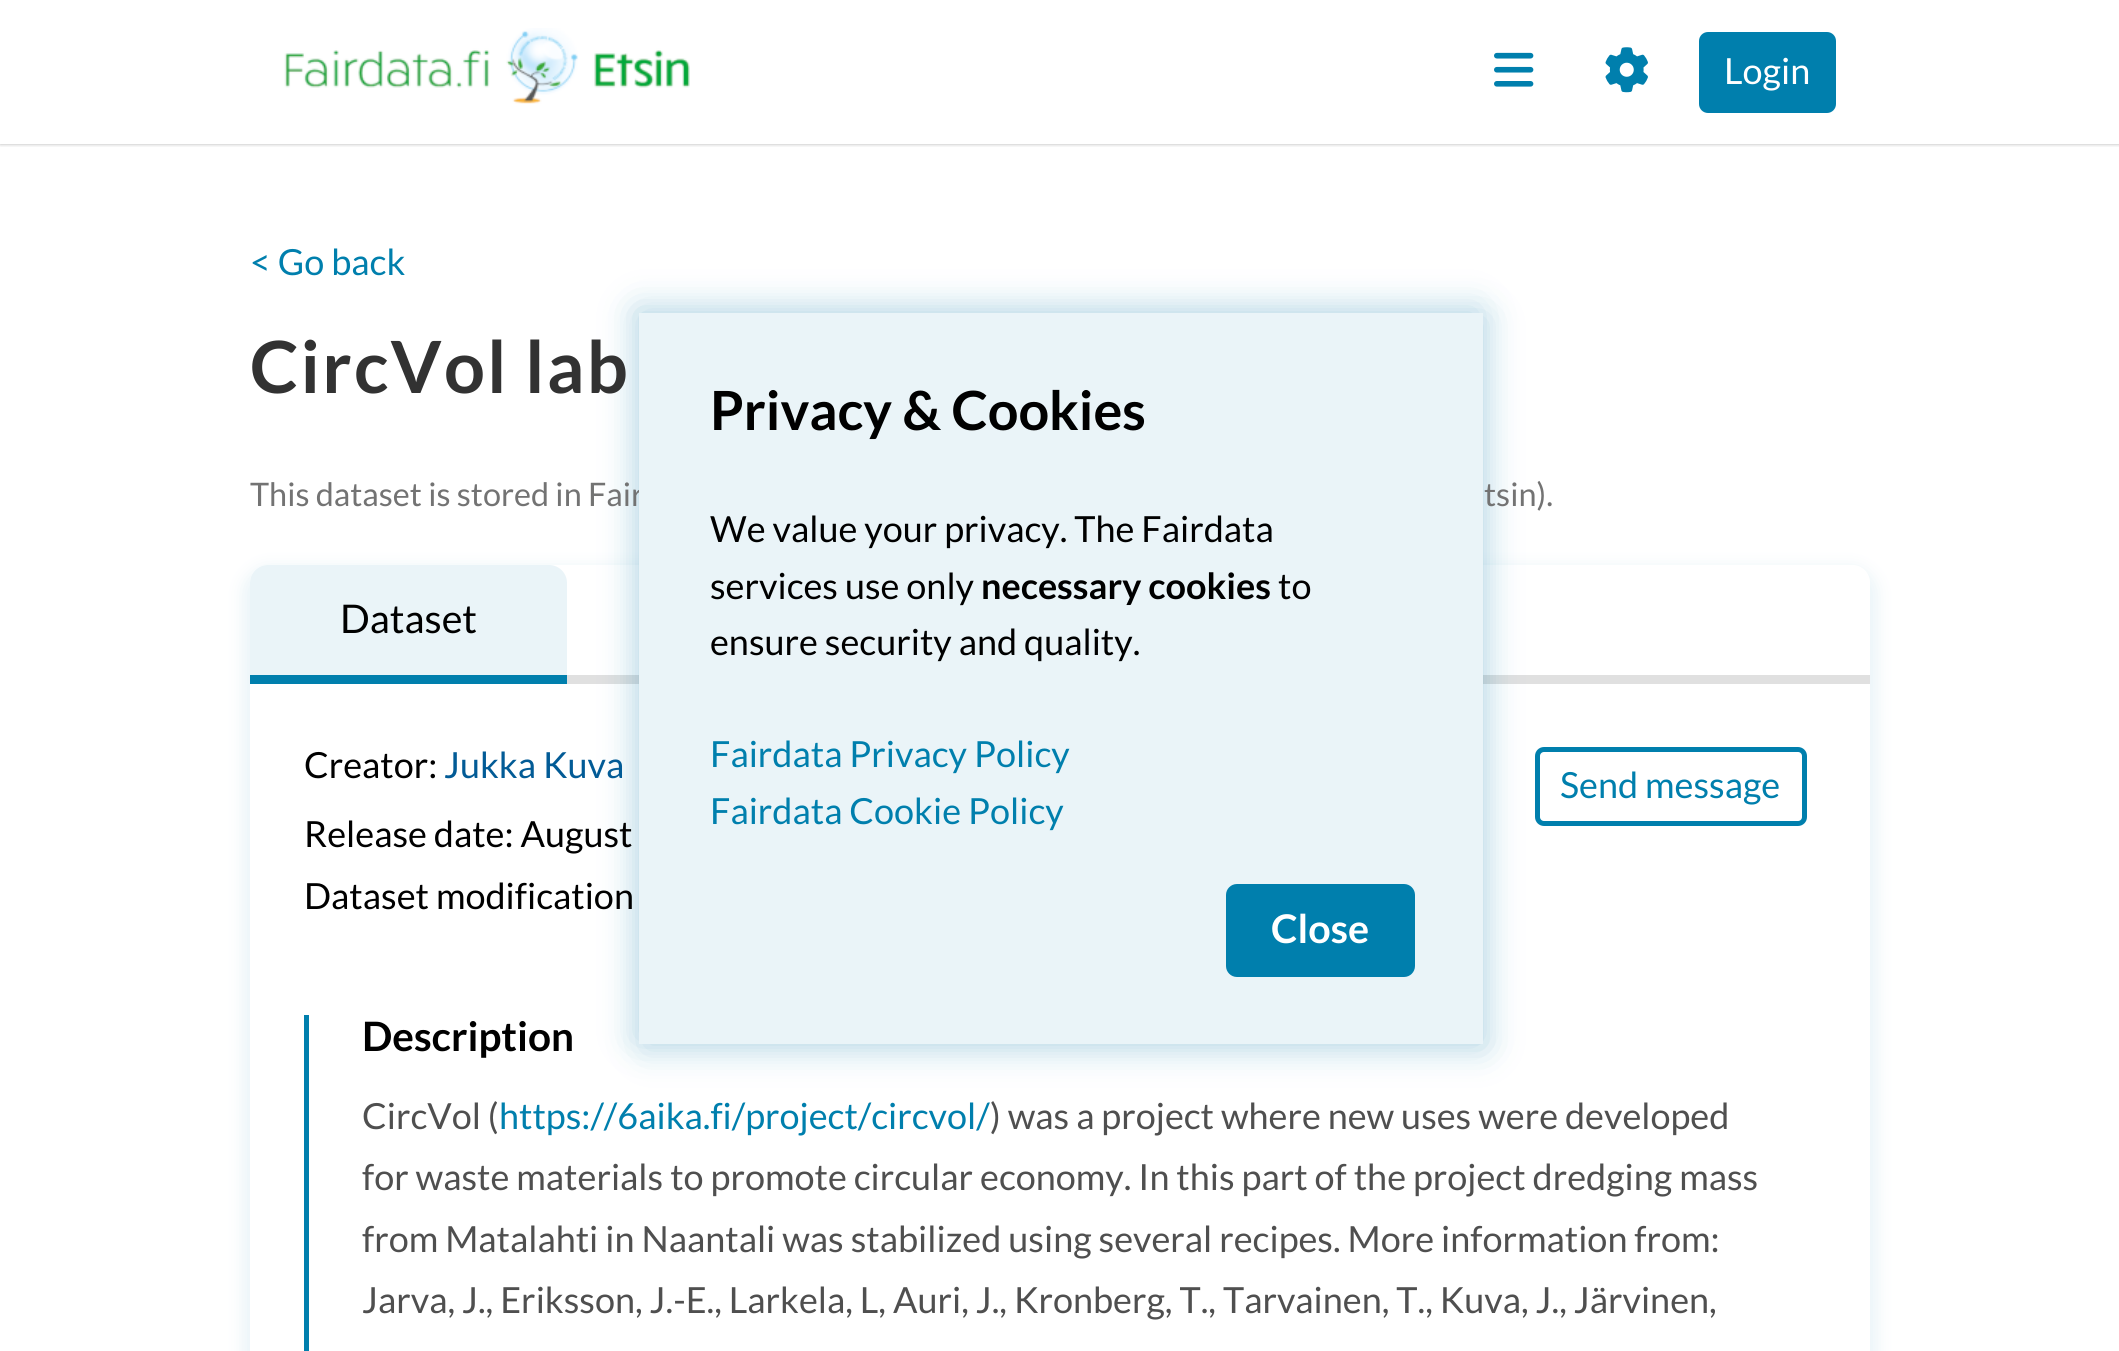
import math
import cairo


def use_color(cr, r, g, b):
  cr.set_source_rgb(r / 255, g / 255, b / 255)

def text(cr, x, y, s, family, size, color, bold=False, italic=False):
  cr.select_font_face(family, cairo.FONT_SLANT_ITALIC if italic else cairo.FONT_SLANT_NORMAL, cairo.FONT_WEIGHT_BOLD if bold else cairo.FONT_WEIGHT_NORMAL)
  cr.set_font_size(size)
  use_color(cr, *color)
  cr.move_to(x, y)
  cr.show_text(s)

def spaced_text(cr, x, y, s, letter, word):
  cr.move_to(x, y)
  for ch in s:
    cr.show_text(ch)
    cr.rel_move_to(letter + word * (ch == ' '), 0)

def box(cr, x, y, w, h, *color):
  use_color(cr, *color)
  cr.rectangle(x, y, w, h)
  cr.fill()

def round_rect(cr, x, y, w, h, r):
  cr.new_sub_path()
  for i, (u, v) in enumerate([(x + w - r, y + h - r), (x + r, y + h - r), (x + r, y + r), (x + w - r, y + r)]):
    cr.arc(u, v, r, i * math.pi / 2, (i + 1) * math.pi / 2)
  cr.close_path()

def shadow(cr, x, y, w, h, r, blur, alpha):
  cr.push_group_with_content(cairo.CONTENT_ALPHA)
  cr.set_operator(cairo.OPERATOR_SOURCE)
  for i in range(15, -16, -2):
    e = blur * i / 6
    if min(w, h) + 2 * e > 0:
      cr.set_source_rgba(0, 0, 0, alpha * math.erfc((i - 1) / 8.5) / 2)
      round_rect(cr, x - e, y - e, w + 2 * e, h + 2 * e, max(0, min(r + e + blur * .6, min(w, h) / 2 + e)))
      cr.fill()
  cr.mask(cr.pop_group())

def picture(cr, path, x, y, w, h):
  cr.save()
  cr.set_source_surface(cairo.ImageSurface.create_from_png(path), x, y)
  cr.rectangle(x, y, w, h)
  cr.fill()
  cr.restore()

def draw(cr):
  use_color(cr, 255, 255, 255)
  cr.paint()
  cr.save()
  cr.rectangle(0, 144, 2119, 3)
  cr.clip()
  use_color(cr, 0, 0, 0)
  shadow(cr, 0, 0, 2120, 144, 0, 2, 0.3)
  cr.restore()
  picture(cr, "img_01.png", 284, 28, 406, 76)
  picture(cr, "img_02.png", 1494, 52, 40, 35)
  picture(cr, "img_03.png", 1605, 47, 43, 46)
  use_color(cr, 0, 127, 173)
  round_rect(cr, 1701.5, 34.5, 132, 76, 6.5)
  cr.fill_preserve()
  cr.set_line_width(5)
  cr.stroke()
  cr.save()
  cr.set_fill_rule(cairo.FILL_RULE_EVEN_ODD)
  cr.new_path()
  cr.move_to(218, 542)
  cr.line_to(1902, 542)
  cr.line_to(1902, 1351)
  cr.line_to(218, 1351)
  cr.close_path()
  cr.move_to(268, 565)
  cr.line_to(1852, 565)
  cr.curve_to(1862, 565, 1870, 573, 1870, 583)
  cr.line_to(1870, 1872)
  cr.line_to(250, 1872)
  cr.line_to(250, 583)
  cr.curve_to(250, 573, 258, 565, 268, 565)
  cr.close_path()
  cr.clip()
  use_color(cr, 234, 244, 248)
  shadow(cr, 243, 567, 1634, 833, 25, 8, 1)
  cr.restore()
  box(cr, 567, 675, 1303, 9, 224, 224, 224)
  use_color(cr, 234, 244, 248)
  cr.new_path()
  cr.move_to(268, 565)
  cr.line_to(549, 565)
  cr.curve_to(559, 565, 567, 573, 567, 583)
  cr.line_to(567, 684)
  cr.line_to(250, 684)
  cr.line_to(250, 583)
  cr.curve_to(250, 573, 258, 565, 268, 565)
  cr.close_path()
  cr.fill()
  box(cr, 250, 675, 317, 9, 0, 127, 173)
  round_rect(cr, 1537.5, 749.5, 267, 74, 6.5)
  cr.stroke()
  box(cr, 304, 1015, 5, 336, 0, 127, 173)
  use_color(cr, 0, 117, 163)
  shadow(cr, 635, 308, 843, 732, 0, 18, 0.2)
  shadow(cr, 644, 317, 843, 732, 0, 18, 0.2)
  text(cr, 1724, 84, "Login", "Lato", 36, (255, 255, 255))
  text(cr, 250, 275, "< Go back", "Lato", 36, (0, 127, 173))
  cr.select_font_face("Lato", cairo.FONT_SLANT_NORMAL, cairo.FONT_WEIGHT_BOLD)
  cr.set_font_size(72)
  use_color(cr, 50, 50, 50)
  spaced_text(cr, 250, 393, "CircVol lab", 2.25, 0)
  text(cr, 250, 506, "This dataset is stored in Fair", "Lato", 32.4, (115, 115, 115))
  text(cr, 1484, 506, "tsin).", "Lato", 32.4, (115, 115, 115))
  text(cr, 340, 633, "Dataset", "Lato", 39.5, (0, 0, 0))
  text(cr, 304, 778, "Creator:", "Lato", 36, (0, 0, 0))
  text(cr, 444, 778, "Jukka Kuva", "Lato", 36, (2, 91, 150))
  text(cr, 304, 847, "Release date: August", "Lato", 36, (0, 0, 0))
  text(cr, 304, 909, "Dataset modification", "Lato", 36, (0, 0, 0))
  text(cr, 1560, 798, "Send message", "Lato", 36, (0, 127, 173))
  text(cr, 362, 1051, "Description", "Lato", 40.5, (0, 0, 0), bold=True)
  text(cr, 362, 1129, "CircVol (", "Lato", 36, (79, 79, 79))
  text(cr, 499, 1129, "https://6aika.fi/project/circvol/", "Lato", 36, (0, 127, 173))
  text(cr, 990, 1129, ") was a project where new uses were developed", "Lato", 36, (79, 79, 79))
  text(cr, 362, 1190, "for waste materials to promote circular economy. In this part of the project dredging mass", "Lato", 36, (79, 79, 79))
  text(cr, 362, 1252, "from Matalahti in Naantali was stabilized using several recipes. More information from:", "Lato", 36, (79, 79, 79))
  text(cr, 362, 1313, "Jarva, J., Eriksson, J.-E., Larkela, L, Auri, J., Kronberg, T., Tarvainen, T., Kuva, J., Järvinen,", "Lato", 36, (79, 79, 79))
  box(cr, 639, 313, 844, 731, 234, 244, 248)
  text(cr, 710, 430, "Privacy & Cookies", "Lato", 54, (0, 0, 0), bold=True)
  text(cr, 710, 542, "We value your privacy. The Fairdata", "Lato", 36, (0, 0, 0))
  text(cr, 710, 599, "services use only", "Lato", 36, (0, 0, 0))
  text(cr, 981, 599, "necessary cookies", "Lato", 36, (0, 0, 0), bold=True)
  text(cr, 1278, 599, "to", "Lato", 36, (0, 0, 0))
  text(cr, 710, 655, "ensure security and quality.", "Lato", 36, (0, 0, 0))
  text(cr, 710, 767, "Fairdata Privacy Policy", "Lato", 36, (0, 127, 173))
  text(cr, 710, 824, "Fairdata Cookie Policy", "Lato", 36, (0, 127, 173))
  round_rect(cr, 1226, 884, 189, 93, 11)
  cr.fill()
  text(cr, 1271, 943, "Close", "Lato", 39.5, (255, 255, 255), bold=True)


surface = cairo.ImageSurface(cairo.FORMAT_RGB24, 2119, 1351)
cr = cairo.Context(surface)
options = cairo.FontOptions()
options.set_hint_metrics(cairo.HINT_METRICS_OFF)
options.set_hint_style(cairo.HINT_STYLE_NONE)
cr.set_font_options(options)
cr.set_miter_limit(4)
draw(cr)
surface.write_to_png("out.png")
